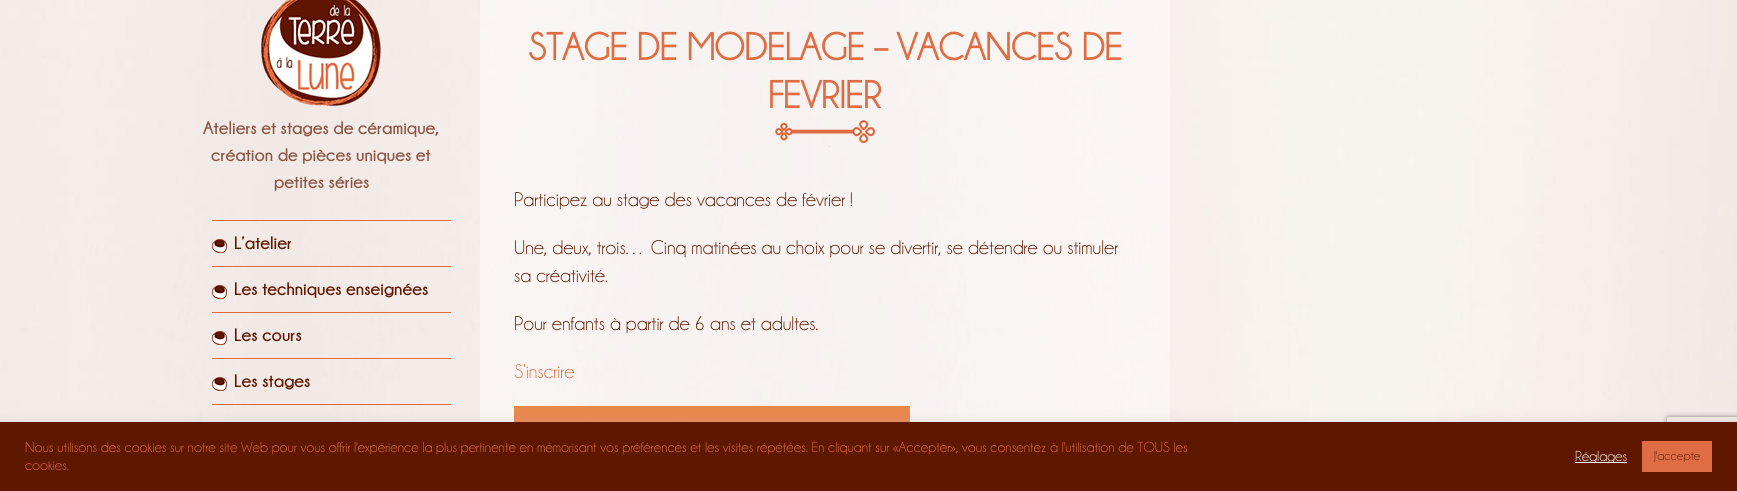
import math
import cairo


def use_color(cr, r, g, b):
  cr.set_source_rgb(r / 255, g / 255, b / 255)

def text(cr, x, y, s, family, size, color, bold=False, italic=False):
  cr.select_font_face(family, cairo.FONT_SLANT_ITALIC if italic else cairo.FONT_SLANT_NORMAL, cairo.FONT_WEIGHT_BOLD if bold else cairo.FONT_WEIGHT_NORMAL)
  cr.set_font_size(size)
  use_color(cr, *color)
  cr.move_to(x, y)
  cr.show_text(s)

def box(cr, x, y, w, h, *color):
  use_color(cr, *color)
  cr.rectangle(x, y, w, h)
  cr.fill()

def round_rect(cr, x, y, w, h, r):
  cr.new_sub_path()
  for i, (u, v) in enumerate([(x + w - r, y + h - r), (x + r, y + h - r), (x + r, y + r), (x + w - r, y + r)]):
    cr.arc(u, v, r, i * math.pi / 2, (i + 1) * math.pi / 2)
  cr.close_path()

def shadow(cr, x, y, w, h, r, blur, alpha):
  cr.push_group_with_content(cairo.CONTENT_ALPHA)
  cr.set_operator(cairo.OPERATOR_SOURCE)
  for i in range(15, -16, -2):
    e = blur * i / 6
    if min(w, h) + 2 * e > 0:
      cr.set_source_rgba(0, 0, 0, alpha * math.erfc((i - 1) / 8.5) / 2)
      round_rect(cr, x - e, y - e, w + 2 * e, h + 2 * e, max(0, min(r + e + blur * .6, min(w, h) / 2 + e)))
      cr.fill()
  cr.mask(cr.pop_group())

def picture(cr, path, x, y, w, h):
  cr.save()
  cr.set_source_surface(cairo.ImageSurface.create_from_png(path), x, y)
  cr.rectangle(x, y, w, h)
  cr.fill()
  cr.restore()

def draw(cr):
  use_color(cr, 255, 255, 255)
  cr.paint()
  picture(cr, "img_01.png", 0, 0, 1737, 422)
  picture(cr, "img_02.png", 261, 0, 120, 106)
  box(cr, 212, 220, 239, 1, 222, 109, 67)
  picture(cr, "img_03.png", 212, 239, 15, 14)
  picture(cr, "img_04.png", 212, 285, 15, 14)
  box(cr, 212, 266, 239, 1, 222, 109, 67)
  picture(cr, "img_05.png", 212, 331, 15, 14)
  box(cr, 212, 312, 239, 1, 222, 109, 67)
  picture(cr, "img_06.png", 212, 377, 15, 14)
  box(cr, 212, 358, 239, 1, 222, 109, 67)
  box(cr, 212, 404, 239, 1, 222, 109, 67)
  cr.set_source_rgba(1, 1, 1, 0.45)
  cr.rectangle(480, 0, 690, 422)
  cr.fill()
  picture(cr, "img_07.png", 775, 120, 100, 27)
  picture(cr, "img_08.png", 514, 406, 396, 16)
  cr.save()
  cr.set_fill_rule(cairo.FILL_RULE_EVEN_ODD)
  cr.new_path()
  cr.move_to(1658, 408)
  cr.line_to(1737, 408)
  cr.line_to(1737, 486)
  cr.line_to(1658, 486)
  cr.close_path()
  cr.move_to(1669, 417)
  cr.line_to(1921, 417)
  cr.curve_to(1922, 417, 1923, 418, 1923, 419)
  cr.line_to(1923, 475)
  cr.curve_to(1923, 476, 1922, 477, 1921, 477)
  cr.line_to(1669, 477)
  cr.curve_to(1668, 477, 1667, 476, 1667, 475)
  cr.line_to(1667, 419)
  cr.curve_to(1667, 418, 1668, 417, 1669, 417)
  cr.close_path()
  cr.clip()
  use_color(cr, 128, 128, 128)
  shadow(cr, 1667, 417, 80, 60, 2, 2.5, 1)
  cr.restore()
  use_color(cr, 172, 171, 171)
  shadow(cr, 0, 421, 1737, 69, 0, 5, 0.3)
  box(cr, 0, 422, 1737, 69, 96, 23, 0)
  box(cr, 1575, 462, 52, 1, 255, 255, 255)
  box(cr, 1642, 441, 70, 31, 222, 109, 67)
  text(cr, 203, 134, "Ateliers et stages de céramique,", "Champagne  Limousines", 18, (140, 86, 69), bold=True)
  text(cr, 211, 161, "création de pièces uniques et", "Champagne  Limousines", 18, (140, 86, 69), bold=True)
  text(cr, 274, 188, "petites séries", "Champagne  Limousines", 18, (140, 86, 69), bold=True)
  text(cr, 234, 249, "L’atelier", "Champagne  Limousines", 18, (96, 23, 0), bold=True)
  text(cr, 234, 295, "Les techniques enseignées", "Champagne  Limousines", 18, (96, 23, 0), bold=True)
  text(cr, 234, 341, "Les cours", "Champagne  Limousines", 18, (96, 23, 0), bold=True)
  text(cr, 234, 387, "Les stages", "Champagne  Limousines", 18, (96, 23, 0), bold=True)
  text(cr, 528, 60, "STAGE DE MODELAGE – VACANCES DE", "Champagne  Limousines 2", 39, (222, 109, 67), bold=True)
  text(cr, 768, 108, "FEVRIER", "Champagne  Limousines 2", 39, (222, 109, 67), bold=True)
  text(cr, 514, 206, "Participez au stage des vacances de février !", "Champagne  Limousines", 20, (96, 23, 0))
  text(cr, 514, 254, "Une, deux, trois… Cinq matinées au choix pour se divertir, se détendre ou stimuler", "Champagne  Limousines", 20, (96, 23, 0))
  text(cr, 514, 282, "sa créativité.", "Champagne  Limousines", 20, (96, 23, 0))
  text(cr, 514, 330, "Pour enfants à partir de 6 ans et adultes.", "Champagne  Limousines", 20, (96, 23, 0))
  text(cr, 514, 378, "S’inscrire", "Champagne  Limousines", 20, (222, 109, 67))
  text(cr, 25, 452, "Nous utilisons des cookies sur notre site Web pour vous offrir l'expérience la plus pertinente en mémorisant vos préférences et les visites répétées. En cliquant sur «Accepter», vous consentez à l'utilisation de TOUS les", "Champagne  Limousines", 14.67, (222, 109, 67))
  text(cr, 25, 470, "cookies.", "Champagne  Limousines", 14.67, (222, 109, 67))
  text(cr, 1575, 461, "Réglages", "Champagne  Limousines", 14.67, (255, 255, 255))
  text(cr, 1654, 460, "J'accepte", "Champagne  Limousines", 13, (96, 23, 0))


surface = cairo.ImageSurface(cairo.FORMAT_RGB24, 1737, 491)
cr = cairo.Context(surface)
options = cairo.FontOptions()
options.set_hint_metrics(cairo.HINT_METRICS_OFF)
options.set_hint_style(cairo.HINT_STYLE_NONE)
cr.set_font_options(options)
cr.set_miter_limit(4)
draw(cr)
surface.write_to_png("out.png")
